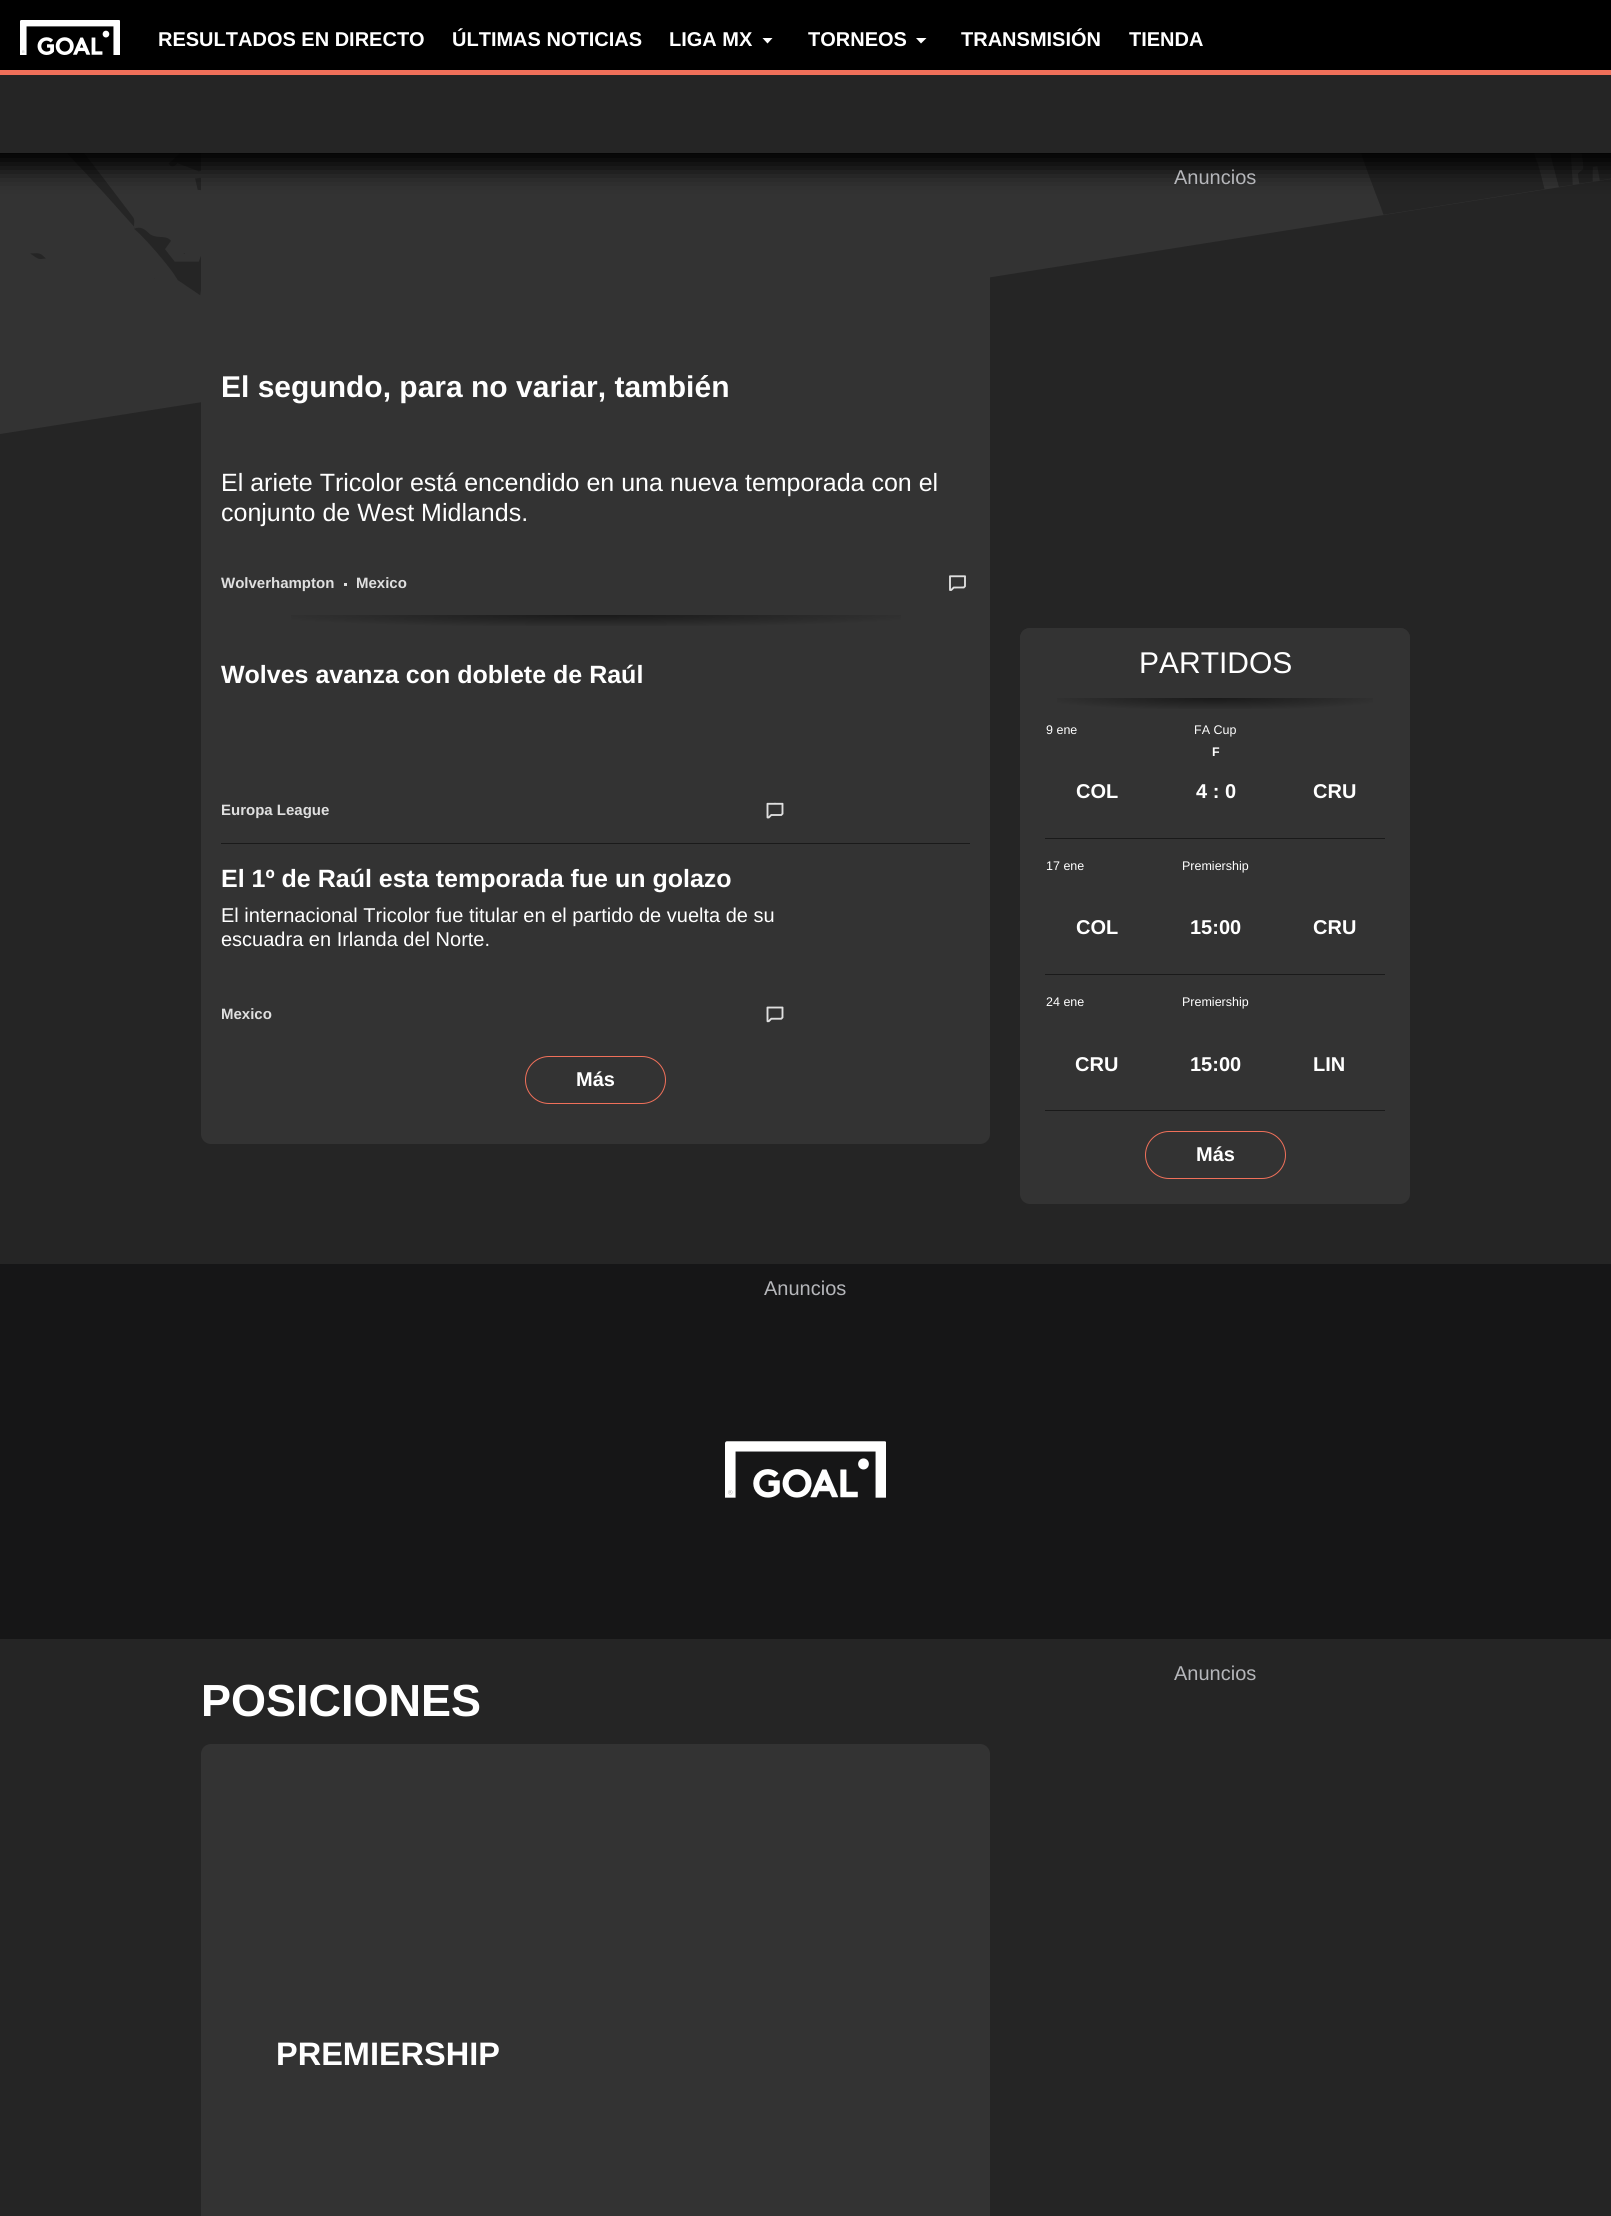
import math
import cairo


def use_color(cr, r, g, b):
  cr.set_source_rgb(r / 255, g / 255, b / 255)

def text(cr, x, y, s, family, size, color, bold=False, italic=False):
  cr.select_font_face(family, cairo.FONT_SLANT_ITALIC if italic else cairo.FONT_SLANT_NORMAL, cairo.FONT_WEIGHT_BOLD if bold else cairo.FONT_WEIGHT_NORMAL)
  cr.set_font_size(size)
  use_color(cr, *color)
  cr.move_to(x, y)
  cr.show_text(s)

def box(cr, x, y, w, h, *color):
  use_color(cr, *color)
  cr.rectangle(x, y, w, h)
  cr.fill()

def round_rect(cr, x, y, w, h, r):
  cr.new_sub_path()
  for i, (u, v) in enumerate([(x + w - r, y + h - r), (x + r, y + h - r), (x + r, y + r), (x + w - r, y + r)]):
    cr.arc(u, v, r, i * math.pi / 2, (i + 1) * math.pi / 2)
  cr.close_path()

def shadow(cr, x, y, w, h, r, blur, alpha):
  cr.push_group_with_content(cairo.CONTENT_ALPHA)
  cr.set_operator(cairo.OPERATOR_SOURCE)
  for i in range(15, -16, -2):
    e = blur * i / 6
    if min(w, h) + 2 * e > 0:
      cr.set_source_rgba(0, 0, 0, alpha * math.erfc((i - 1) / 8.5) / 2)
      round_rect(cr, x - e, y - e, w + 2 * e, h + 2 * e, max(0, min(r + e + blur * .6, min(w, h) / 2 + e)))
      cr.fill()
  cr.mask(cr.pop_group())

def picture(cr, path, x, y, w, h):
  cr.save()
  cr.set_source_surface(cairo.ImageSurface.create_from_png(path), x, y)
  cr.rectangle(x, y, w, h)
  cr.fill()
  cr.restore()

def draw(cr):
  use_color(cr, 37, 37, 37)
  cr.paint()
  use_color(cr, 51, 51, 51)
  cr.new_path()
  cr.move_to(0, -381)
  cr.line_to(0, 434)
  cr.line_to(1611, 179)
  cr.line_to(1611, -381)
  cr.close_path()
  cr.fill()
  picture(cr, "img_01.png", 30, 153, 1581, 143)
  round_rect(cr, 201, -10, 789, 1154, 10)
  cr.fill()
  use_color(cr, 0, 0, 0)
  shadow(cr, -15, 60, 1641, 108, 0, 12, 1)
  box(cr, 0, 0, 1611, 70, 0, 0, 0)
  box(cr, 0, 70, 1611, 5, 240, 112, 90)
  picture(cr, "img_02.png", 20, 20, 100, 35)
  use_color(cr, 255, 255, 255)
  cr.new_path()
  cr.move_to(762.5, 38)
  cr.line_to(767.5, 43.5)
  cr.line_to(772.5, 38)
  cr.close_path()
  cr.fill()
  cr.new_path()
  cr.move_to(916, 38)
  cr.line_to(921, 43.5)
  cr.line_to(926.5, 38)
  cr.close_path()
  cr.fill()
  box(cr, 0, 75, 1611, 78, 37, 37, 37)
  box(cr, 344, 583, 3, 3, 223, 223, 223)
  picture(cr, "img_03.png", 949, 575, 17, 16)
  gradient = cairo.RadialGradient(0, 0, 0, 0, 0, 1)
  gradient.set_matrix(cairo.Matrix(1 / 674, 0, 0, 1 / 25, -1 * 596 / 674, -1 * 615 / 25))
  gradient.add_color_stop_rgba(0, 0.098, 0.098, 0.098, 1)
  gradient.add_color_stop_rgba(0.25, 0.149, 0.149, 0.149, 1)
  gradient.add_color_stop_rgba(0.5, 0.2, 0.2, 0.2, 1)
  cr.set_source(gradient)
  cr.rectangle(291, 615, 610, 11)
  cr.fill()
  picture(cr, "img_04.png", 766, 802, 18, 17)
  box(cr, 221, 843, 749, 1, 26, 26, 26)
  picture(cr, "img_05.png", 766, 1006, 18, 17)
  round_rect(cr, 525.5, 1056.5, 140, 47, 23.5)
  use_color(cr, 240, 112, 90)
  cr.set_line_width(1)
  cr.stroke()
  use_color(cr, 51, 51, 51)
  round_rect(cr, 1020, 628, 390, 576, 10)
  cr.fill()
  round_rect(cr, 1020, 628, 390, 211, 10)
  cr.fill()
  gradient = cairo.RadialGradient(0, 0, 0, 0, 0, 1)
  gradient.set_matrix(cairo.Matrix(1 / 351, 0, 0, 1 / 25, -1 * 1215 / 351, -1 * 698 / 25))
  gradient.add_color_stop_rgba(0, 0.098, 0.098, 0.098, 1)
  gradient.add_color_stop_rgba(0.25, 0.149, 0.149, 0.149, 1)
  gradient.add_color_stop_rgba(0.5, 0.2, 0.2, 0.2, 1)
  cr.set_source(gradient)
  cr.rectangle(1057, 698, 316, 11)
  cr.fill()
  box(cr, 1045, 838, 340, 1, 26, 26, 26)
  box(cr, 1045, 974, 340, 1, 26, 26, 26)
  box(cr, 1045, 1110, 340, 1, 26, 26, 26)
  round_rect(cr, 1145.5, 1131.5, 140, 47, 23.5)
  use_color(cr, 240, 112, 90)
  cr.stroke()
  box(cr, 0, 1264, 1611, 375, 22, 22, 23)
  picture(cr, "img_06.png", 725, 1441, 161, 57)
  use_color(cr, 51, 51, 51)
  round_rect(cr, 201, 1744, 789, 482, 10)
  cr.fill()
  text(cr, 158, 46, "RESULTADOS EN DIRECTO", "Liberation Sans", 20, (255, 255, 255), bold=True)
  text(cr, 452, 46, "ÚLTIMAS NOTICIAS", "Liberation Sans", 20, (255, 255, 255), bold=True)
  text(cr, 669, 46, "LIGA MX", "Liberation Sans", 20, (255, 255, 255), bold=True)
  text(cr, 808, 46, "TORNEOS", "Liberation Sans", 20, (255, 255, 255), bold=True)
  text(cr, 961, 46, "TRANSMISIÓN", "Liberation Sans", 20, (255, 255, 255), bold=True)
  text(cr, 1129, 46, "TIENDA", "Liberation Sans", 20, (255, 255, 255), bold=True)
  text(cr, 1174, 184, "Anuncios", "Liberation Sans", 20, (181, 182, 186))
  text(cr, 221, 397, "El segundo, para no variar, también", "Liberation Sans", 30, (255, 255, 255), bold=True)
  text(cr, 221, 491, "El ariete Tricolor está encendido en una nueva temporada con el", "Liberation Sans", 25, (255, 255, 255))
  text(cr, 221, 521, "conjunto de West Midlands.", "Liberation Sans", 25, (255, 255, 255))
  text(cr, 221, 588, "Wolverhampton", "Liberation Sans", 15, (223, 223, 223), bold=True)
  text(cr, 356, 588, "Mexico", "Liberation Sans", 15, (223, 223, 223), bold=True)
  text(cr, 221, 683, "Wolves avanza con doblete de Raúl", "Liberation Sans", 25, (255, 255, 255), bold=True)
  text(cr, 221, 815, "Europa League", "Liberation Sans", 15, (223, 223, 223), bold=True)
  text(cr, 221, 887, "El 1º de Raúl esta temporada fue un golazo", "Liberation Sans", 25, (255, 255, 255), bold=True)
  text(cr, 221, 922, "El internacional Tricolor fue titular en el partido de vuelta de su", "Liberation Sans", 20, (255, 255, 255))
  text(cr, 221, 946, "escuadra en Irlanda del Norte.", "Liberation Sans", 20, (255, 255, 255))
  text(cr, 221, 1019, "Mexico", "Liberation Sans", 15, (223, 223, 223), bold=True)
  text(cr, 576, 1086, "Más", "Liberation Sans", 20, (255, 255, 255), bold=True)
  text(cr, 1139, 673, "PARTIDOS", "Liberation Sans", 30, (255, 255, 255))
  text(cr, 1046, 734, "9 ene", "Liberation Sans", 12.5, (255, 255, 255))
  cr.save()
  cr.rectangle(1195, 723, 41, 15)
  cr.clip()
  text(cr, 1194, 734, "FA Cup", "Liberation Sans", 12.5, (255, 255, 255))
  cr.restore()
  text(cr, 1212, 756, "F", "Liberation Sans", 12.5, (255, 255, 255), bold=True)
  text(cr, 1076, 798, "COL", "Liberation Sans", 20, (255, 255, 255), bold=True)
  text(cr, 1196, 798, "4 : 0", "Liberation Sans", 20, (255, 255, 255), bold=True)
  text(cr, 1313, 798, "CRU", "Liberation Sans", 20, (255, 255, 255), bold=True)
  text(cr, 1046, 870, "17 ene", "Liberation Sans", 12.5, (255, 255, 255))
  text(cr, 1182, 870, "Premiership", "Liberation Sans", 12.5, (255, 255, 255))
  text(cr, 1076, 934, "COL", "Liberation Sans", 20, (255, 255, 255), bold=True)
  text(cr, 1190, 934, "15:00", "Liberation Sans", 20, (255, 255, 255), bold=True)
  text(cr, 1313, 934, "CRU", "Liberation Sans", 20, (255, 255, 255), bold=True)
  text(cr, 1046, 1006, "24 ene", "Liberation Sans", 12.5, (255, 255, 255))
  text(cr, 1182, 1006, "Premiership", "Liberation Sans", 12.5, (255, 255, 255))
  text(cr, 1075, 1071, "CRU", "Liberation Sans", 20, (255, 255, 255), bold=True)
  text(cr, 1190, 1071, "15:00", "Liberation Sans", 20, (255, 255, 255), bold=True)
  text(cr, 1313, 1071, "LIN", "Liberation Sans", 20, (255, 255, 255), bold=True)
  text(cr, 1196, 1161, "Más", "Liberation Sans", 20, (255, 255, 255), bold=True)
  text(cr, 764, 1295, "Anuncios", "Liberation Sans", 20, (181, 182, 186))
  text(cr, 1174, 1680, "Anuncios", "Liberation Sans", 20, (181, 182, 186))
  text(cr, 201, 1716, "POSICIONES", "Liberation Sans", 45, (255, 255, 255), bold=True)
  text(cr, 276, 2065, "PREMIERSHIP", "Liberation Sans", 32.5, (255, 255, 255), bold=True)


surface = cairo.ImageSurface(cairo.FORMAT_RGB24, 1611, 2216)
cr = cairo.Context(surface)
options = cairo.FontOptions()
options.set_hint_metrics(cairo.HINT_METRICS_OFF)
options.set_hint_style(cairo.HINT_STYLE_NONE)
cr.set_font_options(options)
cr.set_miter_limit(4)
draw(cr)
surface.write_to_png("out.png")
